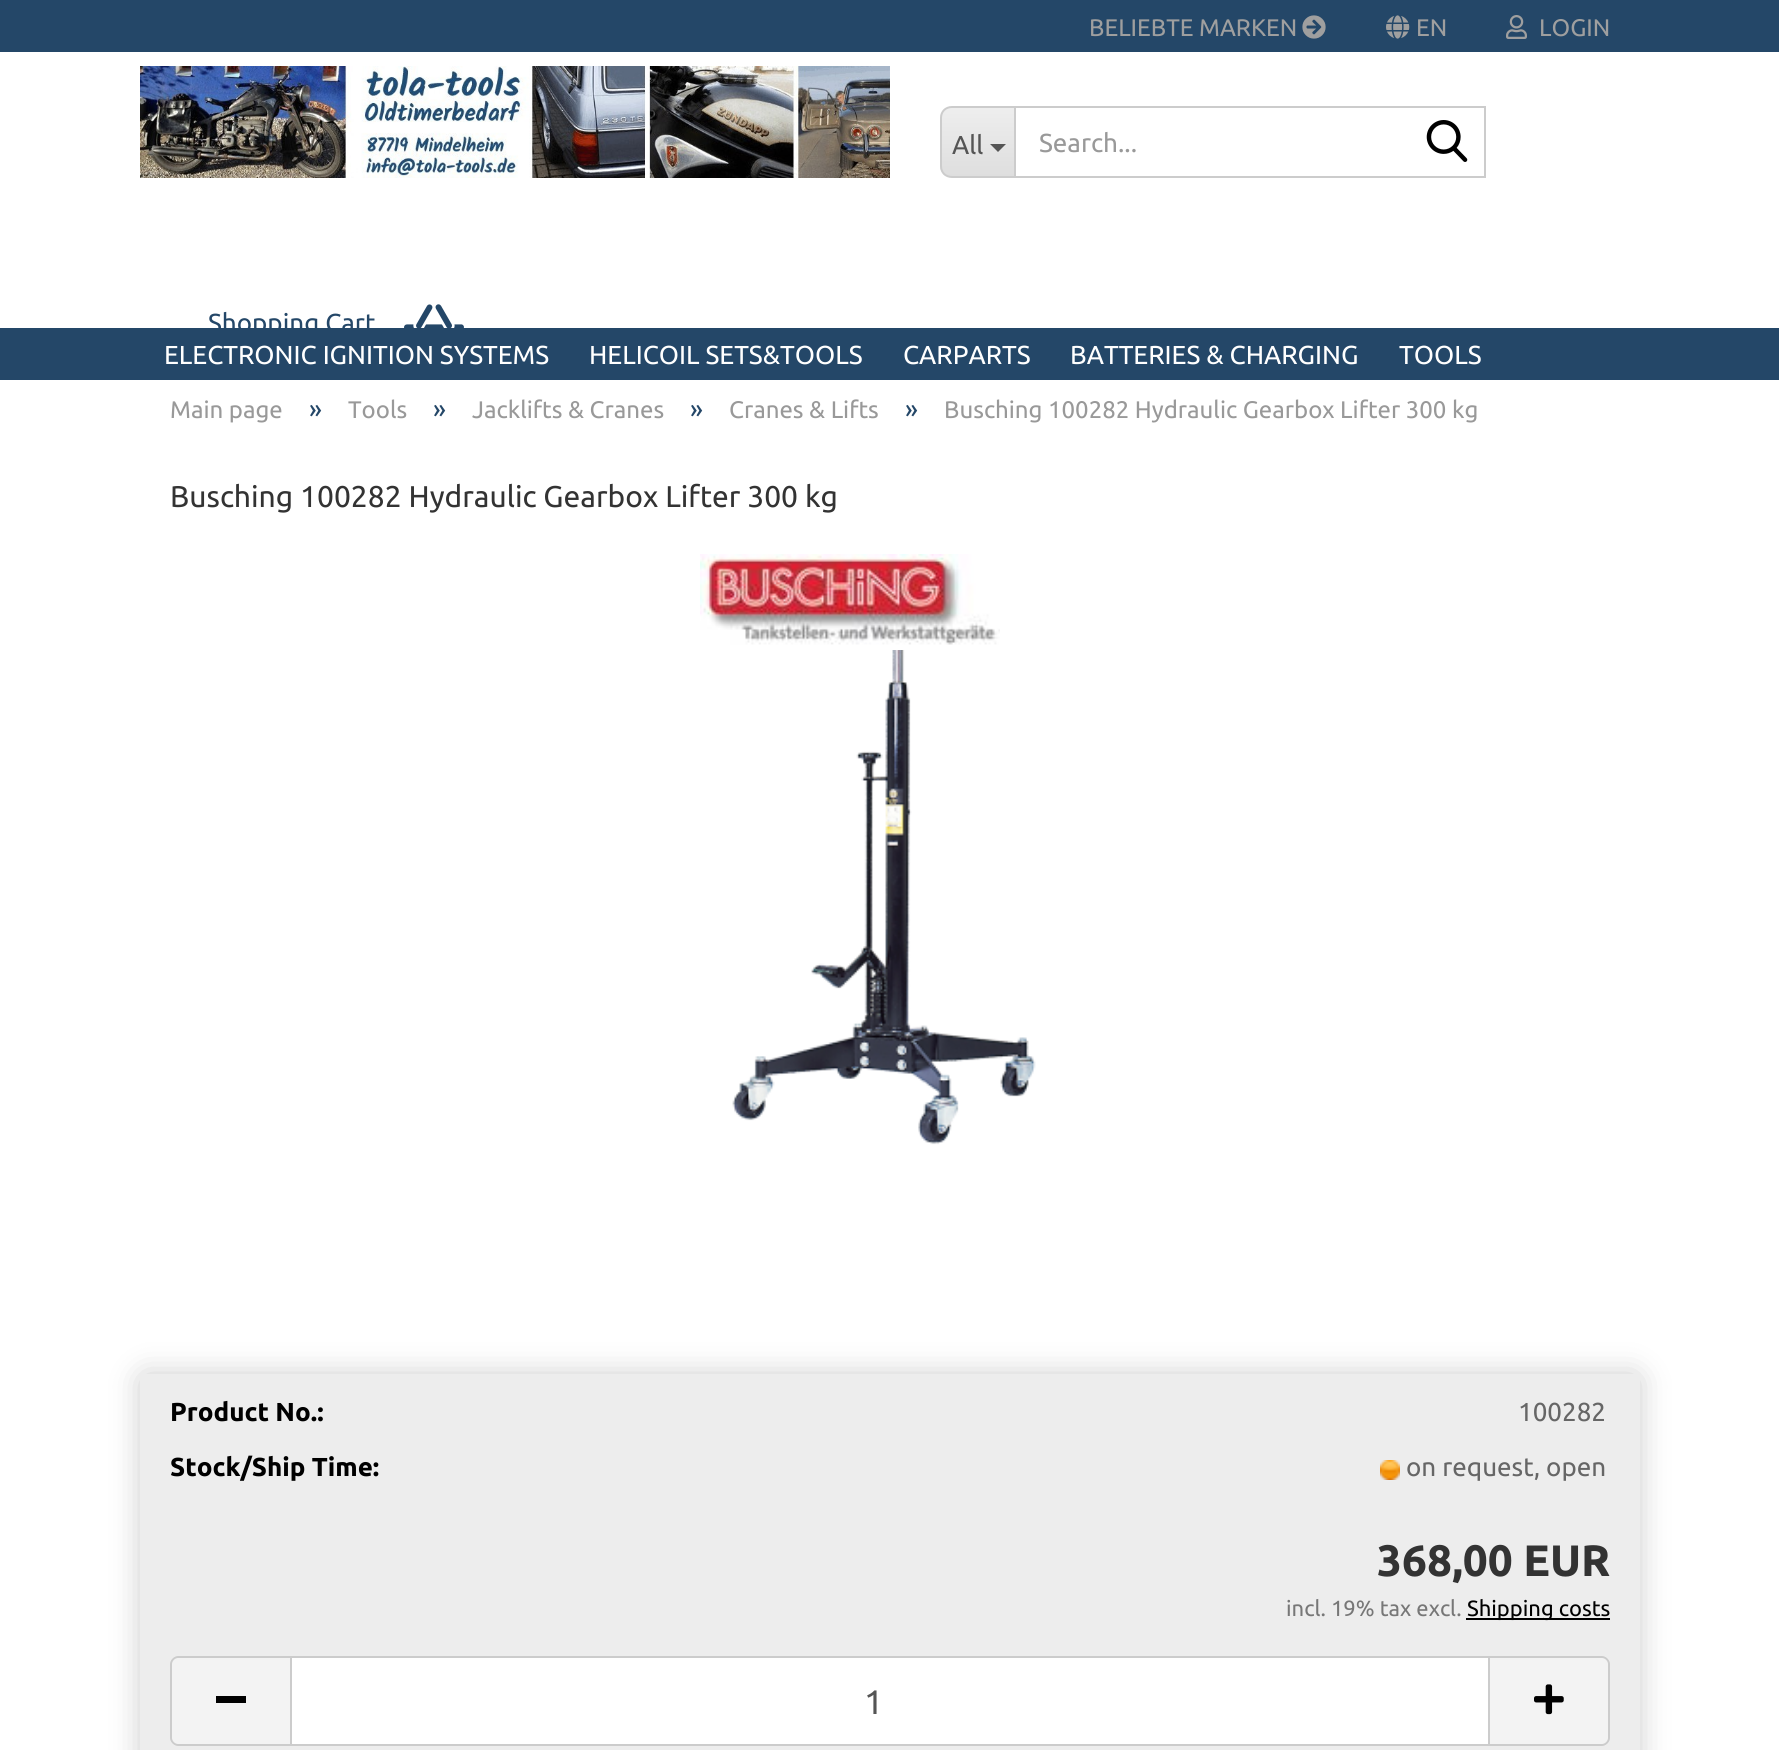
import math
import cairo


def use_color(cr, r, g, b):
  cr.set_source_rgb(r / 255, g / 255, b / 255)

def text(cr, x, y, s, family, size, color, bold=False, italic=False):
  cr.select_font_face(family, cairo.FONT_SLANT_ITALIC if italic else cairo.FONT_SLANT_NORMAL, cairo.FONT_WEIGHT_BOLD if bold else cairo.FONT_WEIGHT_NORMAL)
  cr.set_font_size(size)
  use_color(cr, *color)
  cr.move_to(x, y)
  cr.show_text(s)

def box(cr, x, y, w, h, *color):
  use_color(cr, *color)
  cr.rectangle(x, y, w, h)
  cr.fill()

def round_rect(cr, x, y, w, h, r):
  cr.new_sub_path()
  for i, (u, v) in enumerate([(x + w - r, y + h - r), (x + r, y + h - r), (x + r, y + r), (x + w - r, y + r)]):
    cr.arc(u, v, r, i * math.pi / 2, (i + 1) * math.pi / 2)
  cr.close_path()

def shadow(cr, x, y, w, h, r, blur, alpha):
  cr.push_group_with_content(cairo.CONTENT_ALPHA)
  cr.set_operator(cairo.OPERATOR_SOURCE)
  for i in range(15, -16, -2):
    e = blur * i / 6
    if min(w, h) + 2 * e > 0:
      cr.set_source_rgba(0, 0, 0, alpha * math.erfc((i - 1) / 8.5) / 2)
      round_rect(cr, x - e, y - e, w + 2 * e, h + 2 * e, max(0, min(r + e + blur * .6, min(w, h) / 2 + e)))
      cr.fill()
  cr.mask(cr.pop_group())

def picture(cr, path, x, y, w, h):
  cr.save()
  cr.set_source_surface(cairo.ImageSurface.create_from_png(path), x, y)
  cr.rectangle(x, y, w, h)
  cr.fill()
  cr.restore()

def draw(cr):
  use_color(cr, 255, 255, 255)
  cr.paint()
  box(cr, 0, 0, 1779, 52, 36, 71, 104)
  picture(cr, "img_01.png", 1302, 15, 24, 24)
  picture(cr, "img_02.png", 1386, 15, 24, 24)
  picture(cr, "img_03.png", 1506, 15, 21, 24)
  picture(cr, "img_04.png", 140, 66, 750, 112)
  cr.save()
  cr.new_path()
  cr.move_to(952, 106)
  cr.line_to(1014, 106)
  cr.line_to(1014, 178)
  cr.line_to(952, 178)
  cr.curve_to(945.5, 178, 940, 172.5, 940, 166)
  cr.line_to(940, 118)
  cr.curve_to(940, 111.5, 945.5, 106, 952, 106)
  cr.close_path()
  cr.clip()
  gradient = cairo.LinearGradient(978, 108, 978, 176)
  gradient.add_color_stop_rgba(0, 0.933, 0.933, 0.933, 1)
  gradient.add_color_stop_rgba(1, 0.871, 0.871, 0.871, 1)
  cr.set_source(gradient)
  cr.rectangle(940, 108, 74, 68)
  cr.fill()
  cr.restore()
  use_color(cr, 204, 204, 204)
  cr.set_fill_rule(cairo.FILL_RULE_EVEN_ODD)
  cr.new_path()
  cr.move_to(952, 106)
  cr.line_to(1014, 106)
  cr.line_to(1014, 178)
  cr.line_to(952, 178)
  cr.curve_to(945, 178, 940, 173, 940, 166)
  cr.line_to(940, 118)
  cr.curve_to(940, 111, 945, 106, 952, 106)
  cr.close_path()
  cr.move_to(952, 108)
  cr.line_to(1014, 108)
  cr.line_to(1014, 176)
  cr.line_to(952, 176)
  cr.curve_to(946, 176, 942, 172, 942, 166)
  cr.line_to(942, 118)
  cr.curve_to(942, 112, 946, 108, 952, 108)
  cr.close_path()
  cr.fill()
  use_color(cr, 85, 85, 85)
  cr.set_fill_rule(cairo.FILL_RULE_WINDING)
  cr.new_path()
  cr.move_to(990, 144)
  cr.line_to(1006, 144)
  cr.line_to(998, 152)
  cr.close_path()
  cr.fill()
  cr.rectangle(1015, 107, 470, 70)
  use_color(cr, 204, 204, 204)
  cr.stroke()
  picture(cr, "img_05.png", 1426, 120, 42, 42)
  picture(cr, "img_06.png", 404, 304, 60, 24)
  box(cr, 0, 328, 1779, 52, 36, 71, 104)
  picture(cr, "img_07.png", 700, 554, 300, 96)
  picture(cr, "img_08.png", 732, 650, 304, 495)
  use_color(cr, 0, 0, 0)
  shadow(cr, 140, 1374, 1500, 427, 6, 15, 0.2)
  use_color(cr, 237, 237, 237)
  round_rect(cr, 140, 1374, 1500, 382, 6)
  cr.fill()
  picture(cr, "img_09.png", 1380, 1460, 20, 20)
  box(cr, 1466, 1618, 144, 2, 0, 0, 0)
  use_color(cr, 243, 243, 243)
  cr.new_path()
  cr.move_to(178, 1656)
  cr.line_to(290, 1656)
  cr.line_to(290, 1746)
  cr.line_to(178, 1746)
  cr.curve_to(173.5, 1746, 170, 1742.5, 170, 1738)
  cr.line_to(170, 1664)
  cr.curve_to(170, 1659.5, 173.5, 1656, 178, 1656)
  cr.close_path()
  cr.fill()
  use_color(cr, 204, 204, 204)
  cr.set_fill_rule(cairo.FILL_RULE_EVEN_ODD)
  cr.new_path()
  cr.move_to(178, 1656)
  cr.line_to(290, 1656)
  cr.line_to(290, 1746)
  cr.line_to(178, 1746)
  cr.curve_to(174, 1746, 170, 1742, 170, 1738)
  cr.line_to(170, 1664)
  cr.curve_to(170, 1660, 174, 1656, 178, 1656)
  cr.close_path()
  cr.move_to(178, 1658)
  cr.line_to(290, 1658)
  cr.line_to(290, 1744)
  cr.line_to(178, 1744)
  cr.curve_to(175, 1744, 172, 1741, 172, 1738)
  cr.line_to(172, 1664)
  cr.curve_to(172, 1661, 175, 1658, 178, 1658)
  cr.close_path()
  cr.fill()
  box(cr, 216, 1696, 30, 7, 0, 0, 0)
  use_color(cr, 255, 255, 255)
  cr.rectangle(291, 1657, 1198, 88)
  cr.fill_preserve()
  use_color(cr, 204, 204, 204)
  cr.stroke()
  use_color(cr, 243, 243, 243)
  cr.new_path()
  cr.move_to(1490, 1656)
  cr.line_to(1602, 1656)
  cr.curve_to(1606.5, 1656, 1610, 1659.5, 1610, 1664)
  cr.line_to(1610, 1738)
  cr.curve_to(1610, 1742.5, 1606.5, 1746, 1602, 1746)
  cr.line_to(1490, 1746)
  cr.close_path()
  cr.fill()
  use_color(cr, 204, 204, 204)
  cr.new_path()
  cr.move_to(1490, 1656)
  cr.line_to(1602, 1656)
  cr.curve_to(1606, 1656, 1610, 1660, 1610, 1664)
  cr.line_to(1610, 1738)
  cr.curve_to(1610, 1742, 1606, 1746, 1602, 1746)
  cr.line_to(1490, 1746)
  cr.close_path()
  cr.move_to(1490, 1658)
  cr.line_to(1602, 1658)
  cr.curve_to(1605, 1658, 1608, 1661, 1608, 1664)
  cr.line_to(1608, 1738)
  cr.curve_to(1608, 1741, 1605, 1744, 1602, 1744)
  cr.line_to(1490, 1744)
  cr.close_path()
  cr.fill()
  picture(cr, "img_10.png", 1534, 1684, 30, 31)
  text(cr, 1089, 36, "BELIEBTE MARKEN", "Ubuntu", 24, (159, 159, 159))
  text(cr, 1416, 36, "EN", "Ubuntu", 24, (159, 159, 159))
  text(cr, 1539, 36, "LOGIN", "Ubuntu", 24, (159, 159, 159))
  text(cr, 952, 154, "All", "Ubuntu", 26, (85, 85, 85))
  text(cr, 1039, 152, "Search...", "Ubuntu", 26, (153, 153, 153))
  text(cr, 208, 332, "Shopping Cart", "Ubuntu", 26, (36, 71, 104))
  text(cr, 164, 364, "ELECTRONIC IGNITION SYSTEMS", "Ubuntu", 26, (255, 255, 255))
  text(cr, 589, 364, "HELICOIL SETS&TOOLS", "Ubuntu", 26, (255, 255, 255))
  text(cr, 903, 364, "CARPARTS", "Ubuntu", 26, (255, 255, 255))
  text(cr, 1070, 364, "BATTERIES & CHARGING", "Ubuntu", 26, (255, 255, 255))
  text(cr, 1399, 364, "TOOLS", "Ubuntu", 26, (255, 255, 255))
  text(cr, 170, 418, "Main page", "Ubuntu", 24, (153, 153, 153))
  text(cr, 309, 418, "»", "Ubuntu", 26, (36, 71, 104))
  text(cr, 348, 418, "Tools", "Ubuntu", 24, (153, 153, 153))
  text(cr, 433, 418, "»", "Ubuntu", 26, (36, 71, 104))
  text(cr, 472, 418, "Jacklifts & Cranes", "Ubuntu", 24, (153, 153, 153))
  text(cr, 690, 418, "»", "Ubuntu", 26, (36, 71, 104))
  text(cr, 729, 418, "Cranes & Lifts", "Ubuntu", 24, (153, 153, 153))
  text(cr, 905, 418, "»", "Ubuntu", 26, (36, 71, 104))
  text(cr, 944, 418, "Busching 100282 Hydraulic Gearbox Lifter 300 kg", "Ubuntu", 24, (153, 153, 153))
  text(cr, 170, 507, "Busching 100282 Hydraulic Gearbox Lifter 300 kg", "Ubuntu", 30, (51, 51, 51))
  text(cr, 170, 1421, "Product No.:", "Ubuntu", 26, (0, 0, 0), bold=True)
  text(cr, 1518, 1421, "100282", "Ubuntu", 26, (102, 102, 102))
  text(cr, 170, 1476, "Stock/Ship Time:", "Ubuntu", 26, (0, 0, 0), bold=True)
  text(cr, 1406, 1476, "on request, open", "Ubuntu", 26, (102, 102, 102))
  text(cr, 1377, 1576, "368,00 EUR", "Ubuntu", 44, (51, 51, 51), bold=True)
  text(cr, 1286, 1616, "incl. 19% tax excl.", "Ubuntu", 22, (119, 119, 119))
  text(cr, 1467, 1616, "Shipping costs", "Ubuntu", 22, (0, 0, 0))
  text(cr, 864, 1714, "1", "Ubuntu", 34, (85, 85, 85))


surface = cairo.ImageSurface(cairo.FORMAT_RGB24, 1779, 1750)
cr = cairo.Context(surface)
options = cairo.FontOptions()
options.set_hint_metrics(cairo.HINT_METRICS_OFF)
options.set_hint_style(cairo.HINT_STYLE_NONE)
cr.set_font_options(options)
cr.set_miter_limit(4)
draw(cr)
surface.write_to_png("out.png")
